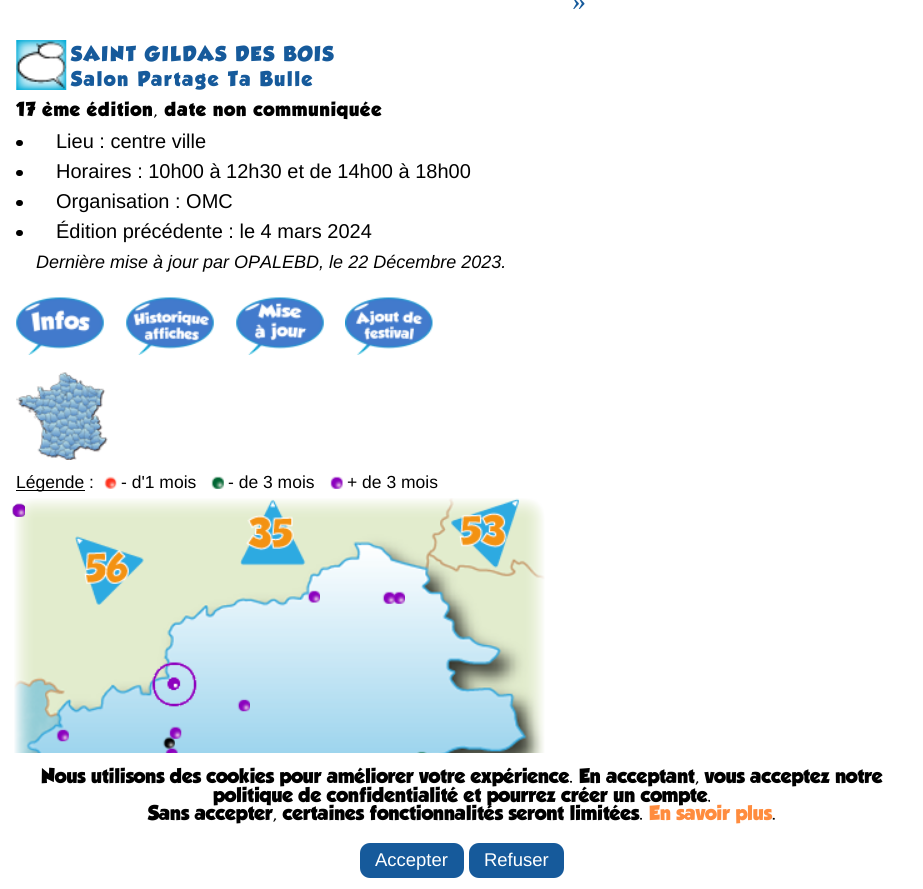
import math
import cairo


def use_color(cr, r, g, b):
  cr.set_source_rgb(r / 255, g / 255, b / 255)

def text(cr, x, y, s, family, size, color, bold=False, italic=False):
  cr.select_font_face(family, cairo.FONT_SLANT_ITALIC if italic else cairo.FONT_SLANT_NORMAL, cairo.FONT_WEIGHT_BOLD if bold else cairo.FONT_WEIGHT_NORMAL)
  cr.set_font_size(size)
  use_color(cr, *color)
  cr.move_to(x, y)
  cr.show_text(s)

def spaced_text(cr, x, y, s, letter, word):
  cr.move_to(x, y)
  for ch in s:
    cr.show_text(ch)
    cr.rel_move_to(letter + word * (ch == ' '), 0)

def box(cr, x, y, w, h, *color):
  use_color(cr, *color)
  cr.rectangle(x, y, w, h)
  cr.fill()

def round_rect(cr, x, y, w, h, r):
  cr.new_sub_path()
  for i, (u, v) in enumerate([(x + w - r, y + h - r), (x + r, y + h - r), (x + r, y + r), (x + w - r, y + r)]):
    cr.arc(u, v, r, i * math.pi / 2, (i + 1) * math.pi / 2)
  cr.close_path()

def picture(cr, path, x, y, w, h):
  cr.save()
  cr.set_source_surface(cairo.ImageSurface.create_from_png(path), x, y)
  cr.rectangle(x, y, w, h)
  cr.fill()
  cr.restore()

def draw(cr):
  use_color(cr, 255, 255, 255)
  cr.paint()
  picture(cr, "img_01.png", 16, 40, 51, 50)
  use_color(cr, 0, 0, 0)
  round_rect(cr, 16, 140, 7, 6, 3)
  cr.fill()
  round_rect(cr, 16, 170, 7, 6, 3)
  cr.fill()
  round_rect(cr, 16, 200, 7, 6, 3)
  cr.fill()
  round_rect(cr, 16, 230, 7, 6, 3)
  cr.fill()
  picture(cr, "img_02.png", 16, 297, 88, 58)
  picture(cr, "img_03.png", 126, 297, 88, 58)
  picture(cr, "img_04.png", 236, 297, 88, 58)
  picture(cr, "img_05.png", 345, 297, 88, 58)
  picture(cr, "img_06.png", 16, 372, 92, 88)
  box(cr, 16, 490, 69, 1, 0, 0, 0)
  picture(cr, "img_07.png", 104, 476, 13, 13)
  picture(cr, "img_08.png", 211, 476, 13, 13)
  picture(cr, "img_09.png", 330, 476, 13, 13)
  picture(cr, "img_10.png", 14, 498, 531, 255)
  picture(cr, "img_11.png", 12, 503, 13, 14)
  picture(cr, "img_12.png", 240, 499, 66, 67)
  picture(cr, "img_13.png", 451, 498, 68, 70)
  picture(cr, "img_14.png", 12, 503, 13, 14)
  picture(cr, "img_15.png", 12, 503, 13, 14)
  picture(cr, "img_16.png", 12, 503, 13, 14)
  picture(cr, "img_17.png", 12, 503, 13, 14)
  picture(cr, "img_18.png", 12, 503, 13, 14)
  picture(cr, "img_19.png", 12, 503, 13, 14)
  picture(cr, "img_20.png", 12, 503, 13, 14)
  picture(cr, "img_21.png", 75, 536, 69, 69)
  picture(cr, "img_22.png", 307, 590, 13, 13)
  picture(cr, "img_24.png", 392, 591, 13, 13)
  picture(cr, "img_23.png", 382, 591, 13, 13)
  picture(cr, "img_25.png", 152, 662, 45, 45)
  picture(cr, "img_26.png", 237, 698, 13, 14)
  picture(cr, "img_27.png", 56, 728, 13, 14)
  picture(cr, "img_29.png", 162, 736, 13, 13)
  picture(cr, "img_28.png", 168, 726, 14, 13)
  picture(cr, "img_30.png", 165, 747, 13, 6)
  picture(cr, "img_31.png", 417, 751, 10, 2)
  use_color(cr, 22, 90, 155)
  round_rect(cr, 361.5, 844.5, 101, 32, 8.5)
  cr.fill_preserve()
  cr.set_line_width(3)
  cr.stroke()
  round_rect(cr, 470.5, 844.5, 92, 32, 8.5)
  cr.fill_preserve()
  cr.stroke()
  text(cr, 572, 10, "»", "Liberation Serif", 28, (22, 90, 155))
  cr.select_font_face("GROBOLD", cairo.FONT_SLANT_NORMAL, cairo.FONT_WEIGHT_BOLD)
  cr.set_font_size(18.45)
  spaced_text(cr, 71, 61, "SAINT GILDAS DES BOIS", 1.85, 0)
  spaced_text(cr, 71, 86, "Salon Partage Ta Bulle", 1.85, 0)
  cr.set_font_size(17.5)
  use_color(cr, 0, 0, 0)
  spaced_text(cr, 16, 116, "17 ème édition, date non communiquée", 0.9, 0)
  text(cr, 56, 148, "Lieu : centre ville", "Liberation Sans", 20, (0, 0, 0))
  text(cr, 56, 178, "Horaires : 10h00 à 12h30 et de 14h00 à 18h00", "Liberation Sans", 20, (0, 0, 0))
  text(cr, 56, 208, "Organisation : OMC", "Liberation Sans", 20, (0, 0, 0))
  text(cr, 56, 238, "Édition précédente : le 4 mars 2024", "Liberation Sans", 20, (0, 0, 0))
  text(cr, 36, 268, "Dernière mise à jour par OPALEBD, le 22 Décembre 2023.", "Liberation Sans", 18, (0, 0, 0), italic=True)
  text(cr, 16, 488, "Légende :", "Liberation Sans", 17.5, (0, 0, 0))
  text(cr, 121, 488, "- d'1 mois", "Liberation Sans", 17.5, (0, 0, 0))
  text(cr, 228, 488, "- de 3 mois", "Liberation Sans", 17.5, (0, 0, 0))
  text(cr, 347, 488, "+ de 3 mois", "Liberation Sans", 17.5, (0, 0, 0))
  text(cr, 41, 783, "Nous utilisons des cookies pour améliorer votre expérience. En acceptant, vous acceptez notre", "GROBOLD", 18.45, (0, 0, 0), bold=True)
  text(cr, 213, 802, "politique de confidentialité et pourrez créer un compte.", "GROBOLD", 18.45, (0, 0, 0), bold=True)
  text(cr, 148, 820, "Sans accepter, certaines fonctionnalités seront limitées.", "GROBOLD", 18.45, (0, 0, 0), bold=True)
  text(cr, 649, 820, "En savoir plus", "GROBOLD", 18.45, (255, 140, 62), bold=True)
  text(cr, 772, 820, ".", "GROBOLD", 18.45, (0, 0, 0), bold=True)
  text(cr, 375, 866, "Accepter", "Liberation Sans", 18.45, (255, 255, 255))
  text(cr, 484, 866, "Refuser", "Liberation Sans", 18.45, (255, 255, 255))


surface = cairo.ImageSurface(cairo.FORMAT_RGB24, 923, 889)
cr = cairo.Context(surface)
options = cairo.FontOptions()
options.set_hint_metrics(cairo.HINT_METRICS_OFF)
options.set_hint_style(cairo.HINT_STYLE_NONE)
cr.set_font_options(options)
cr.set_miter_limit(4)
draw(cr)
surface.write_to_png("out.png")
